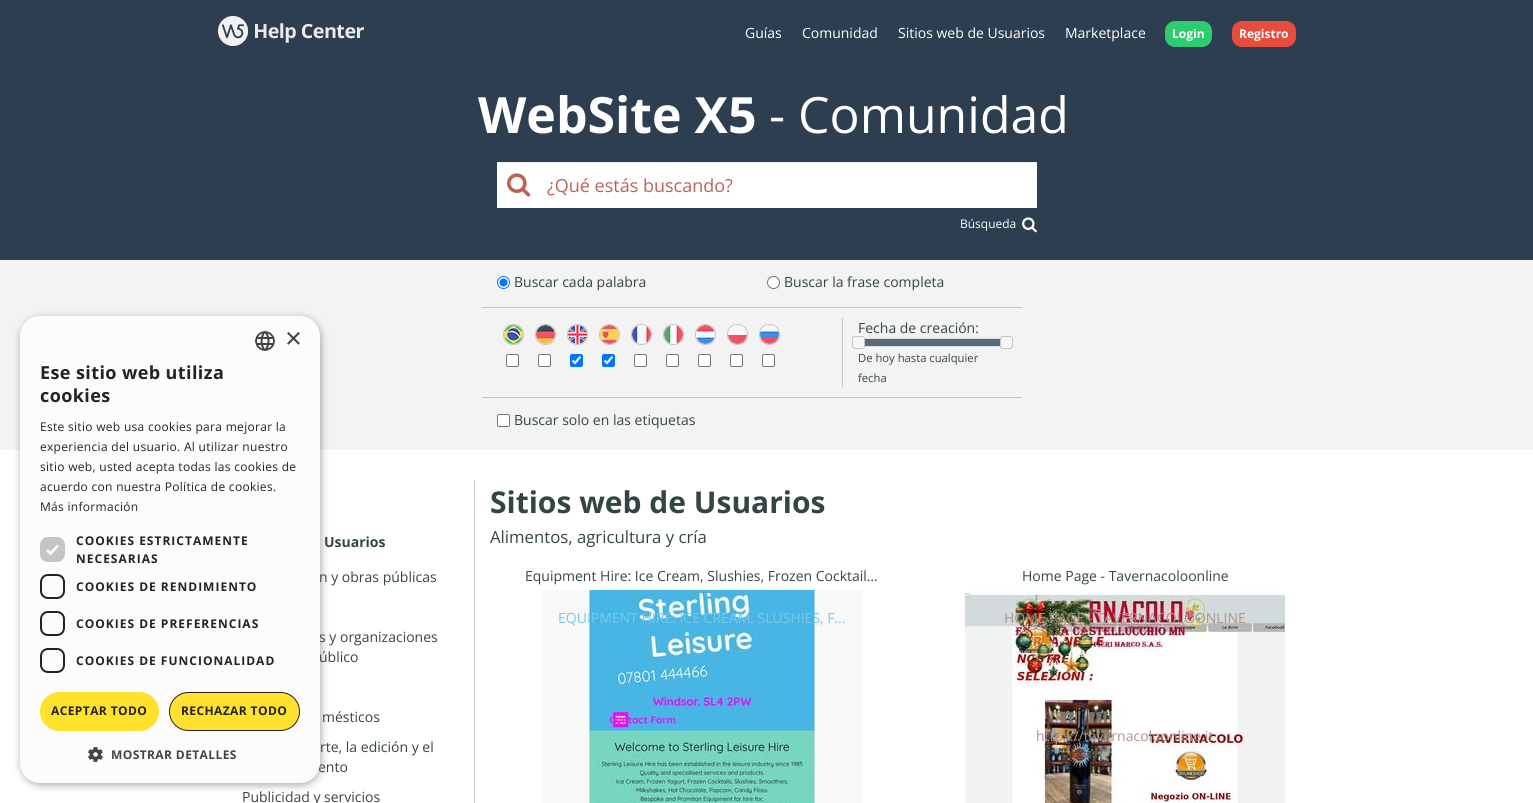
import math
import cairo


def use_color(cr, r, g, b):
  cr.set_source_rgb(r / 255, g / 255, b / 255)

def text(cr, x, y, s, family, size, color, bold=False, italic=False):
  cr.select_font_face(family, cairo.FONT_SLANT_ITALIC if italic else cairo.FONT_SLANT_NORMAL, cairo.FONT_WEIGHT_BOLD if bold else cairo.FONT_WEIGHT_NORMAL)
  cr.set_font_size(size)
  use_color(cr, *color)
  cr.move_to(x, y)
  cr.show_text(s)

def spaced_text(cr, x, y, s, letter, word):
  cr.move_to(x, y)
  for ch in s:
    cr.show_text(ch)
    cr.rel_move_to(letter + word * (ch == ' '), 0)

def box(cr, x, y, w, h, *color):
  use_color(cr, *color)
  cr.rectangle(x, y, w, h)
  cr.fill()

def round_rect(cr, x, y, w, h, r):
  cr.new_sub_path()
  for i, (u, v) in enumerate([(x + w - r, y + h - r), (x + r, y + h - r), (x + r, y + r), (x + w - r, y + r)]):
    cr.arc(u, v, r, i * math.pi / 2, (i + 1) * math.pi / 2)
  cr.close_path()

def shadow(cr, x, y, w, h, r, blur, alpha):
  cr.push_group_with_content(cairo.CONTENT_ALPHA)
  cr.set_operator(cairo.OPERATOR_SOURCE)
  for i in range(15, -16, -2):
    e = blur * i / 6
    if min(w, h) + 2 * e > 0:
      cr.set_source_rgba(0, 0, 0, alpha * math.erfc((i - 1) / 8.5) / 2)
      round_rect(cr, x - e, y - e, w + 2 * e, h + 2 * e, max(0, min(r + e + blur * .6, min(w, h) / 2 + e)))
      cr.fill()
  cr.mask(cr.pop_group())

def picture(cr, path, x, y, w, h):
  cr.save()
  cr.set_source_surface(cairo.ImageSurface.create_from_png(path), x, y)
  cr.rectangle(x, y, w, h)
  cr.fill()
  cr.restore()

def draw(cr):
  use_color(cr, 255, 255, 255)
  cr.paint()
  box(cr, 0, 0, 1533, 260, 44, 62, 80)
  picture(cr, "img_01.png", 218, 16, 146, 30)
  use_color(cr, 46, 204, 113)
  round_rect(cr, 1165, 21, 47, 26, 10)
  cr.fill()
  use_color(cr, 231, 76, 60)
  round_rect(cr, 1232, 21, 64, 26, 10)
  cr.fill()
  box(cr, 497, 163, 540, 45, 255, 255, 255)
  picture(cr, "img_02.png", 507, 173, 24, 24)
  box(cr, 497, 162, 540, 1, 236, 236, 236)
  picture(cr, "img_03.png", 1022, 217, 15, 16)
  box(cr, 0, 260, 1533, 190, 243, 243, 243)
  use_color(cr, 0, 0, 0)
  shadow(cr, 21, 318, 300, 467, 20, 4, 0.35)
  use_color(cr, 255, 255, 255)
  cr.arc(503.5, 282.5, 6, 0, 2 * math.pi)
  cr.fill_preserve()
  use_color(cr, 0, 117, 255)
  cr.set_line_width(1)
  cr.stroke()
  cr.arc(503.5, 282.5, 4, 0, 2 * math.pi)
  cr.fill()
  use_color(cr, 255, 255, 255)
  cr.arc(773.5, 282.5, 6, 0, 2 * math.pi)
  cr.fill_preserve()
  use_color(cr, 118, 118, 118)
  cr.stroke()
  box(cr, 482, 307, 540, 1, 199, 199, 199)
  round_rect(cr, 503.5, 324.5, 20, 20, 9.5)
  cr.stroke()
  picture(cr, "img_06.png", 504, 325, 19, 19)
  use_color(cr, 255, 255, 255)
  round_rect(cr, 506.5, 354.5, 12, 12, 1.5)
  cr.fill_preserve()
  use_color(cr, 118, 118, 118)
  cr.stroke()
  round_rect(cr, 535.5, 324.5, 20, 20, 9.5)
  use_color(cr, 199, 199, 199)
  cr.stroke()
  picture(cr, "img_07.png", 536, 325, 19, 19)
  use_color(cr, 255, 255, 255)
  round_rect(cr, 538.5, 354.5, 12, 12, 1.5)
  cr.fill_preserve()
  use_color(cr, 118, 118, 118)
  cr.stroke()
  round_rect(cr, 567.5, 324.5, 20, 20, 9.5)
  use_color(cr, 199, 199, 199)
  cr.stroke()
  picture(cr, "img_08.png", 568, 325, 19, 19)
  use_color(cr, 0, 117, 255)
  round_rect(cr, 570, 354, 13, 13, 2)
  cr.fill()
  cr.new_path()
  cr.move_to(572.5, 360.5)
  cr.line_to(575, 363)
  cr.line_to(580.5, 356.5)
  use_color(cr, 255, 255, 255)
  cr.set_line_width(2.1)
  cr.stroke()
  round_rect(cr, 599.5, 324.5, 20, 20, 9.5)
  use_color(cr, 199, 199, 199)
  cr.set_line_width(1)
  cr.stroke()
  picture(cr, "img_09.png", 600, 325, 19, 19)
  use_color(cr, 0, 117, 255)
  round_rect(cr, 602, 354, 13, 13, 2)
  cr.fill()
  cr.new_path()
  cr.move_to(604.5, 360.5)
  cr.line_to(607, 363)
  cr.line_to(612.5, 356.5)
  use_color(cr, 255, 255, 255)
  cr.set_line_width(2.1)
  cr.stroke()
  round_rect(cr, 631.5, 324.5, 20, 20, 9.5)
  use_color(cr, 199, 199, 199)
  cr.set_line_width(1)
  cr.stroke()
  picture(cr, "img_10.png", 632, 325, 19, 19)
  use_color(cr, 255, 255, 255)
  round_rect(cr, 634.5, 354.5, 12, 12, 1.5)
  cr.fill_preserve()
  use_color(cr, 118, 118, 118)
  cr.stroke()
  round_rect(cr, 663.5, 324.5, 20, 20, 9.5)
  use_color(cr, 199, 199, 199)
  cr.stroke()
  picture(cr, "img_11.png", 664, 325, 19, 19)
  use_color(cr, 255, 255, 255)
  round_rect(cr, 666.5, 354.5, 12, 12, 1.5)
  cr.fill_preserve()
  use_color(cr, 118, 118, 118)
  cr.stroke()
  round_rect(cr, 695.5, 324.5, 20, 20, 9.5)
  use_color(cr, 199, 199, 199)
  cr.stroke()
  picture(cr, "img_12.png", 696, 325, 19, 19)
  use_color(cr, 255, 255, 255)
  round_rect(cr, 698.5, 354.5, 12, 12, 1.5)
  cr.fill_preserve()
  use_color(cr, 118, 118, 118)
  cr.stroke()
  round_rect(cr, 727.5, 324.5, 20, 20, 9.5)
  use_color(cr, 199, 199, 199)
  cr.stroke()
  picture(cr, "img_13.png", 728, 325, 19, 19)
  use_color(cr, 255, 255, 255)
  round_rect(cr, 730.5, 354.5, 12, 12, 1.5)
  cr.fill_preserve()
  use_color(cr, 118, 118, 118)
  cr.stroke()
  round_rect(cr, 759.5, 324.5, 20, 20, 9.5)
  use_color(cr, 199, 199, 199)
  cr.stroke()
  picture(cr, "img_14.png", 760, 325, 19, 19)
  use_color(cr, 255, 255, 255)
  round_rect(cr, 762.5, 354.5, 12, 12, 1.5)
  cr.fill_preserve()
  use_color(cr, 118, 118, 118)
  cr.stroke()
  box(cr, 842, 318, 1, 69, 199, 199, 199)
  cr.rectangle(858.5, 338.5, 149, 8)
  use_color(cr, 221, 221, 221)
  cr.stroke()
  box(cr, 859, 339, 148, 7, 88, 107, 121)
  use_color(cr, 246, 246, 246)
  round_rect(cr, 852.5, 336.5, 12, 12, 2.5)
  cr.fill_preserve()
  use_color(cr, 197, 197, 197)
  cr.stroke()
  use_color(cr, 246, 246, 246)
  round_rect(cr, 1000.5, 336.5, 12, 12, 2.5)
  cr.fill_preserve()
  use_color(cr, 197, 197, 197)
  cr.stroke()
  box(cr, 482, 397, 540, 1, 199, 199, 199)
  use_color(cr, 255, 255, 255)
  round_rect(cr, 497.5, 414.5, 12, 12, 1.5)
  cr.fill_preserve()
  use_color(cr, 118, 118, 118)
  cr.stroke()
  box(cr, 474, 480, 1, 323, 199, 199, 199)
  picture(cr, "img_15.png", 542, 590, 320, 213)
  picture(cr, "img_16.png", 965, 590, 320, 213)
  text(cr, 745, 38, "Guías", "Open Sans", 14, (255, 255, 255))
  text(cr, 802, 38, "Comunidad", "Open Sans", 14, (255, 255, 255))
  text(cr, 898, 38, "Sitios web de Usuarios", "Open Sans", 14, (255, 255, 255))
  text(cr, 1065, 38, "Marketplace", "Open Sans", 14, (255, 255, 255))
  text(cr, 1172, 38, "Login", "Open Sans", 12, (255, 255, 255), bold=True)
  text(cr, 1239, 38, "Registro", "Open Sans", 12, (255, 255, 255), bold=True)
  text(cr, 478, 133, "WebSite X5", "Open Sans", 50, (255, 255, 255), bold=True)
  text(cr, 769, 133, "- Comunidad", "Open Sans", 50, (255, 255, 255))
  text(cr, 547, 192, "¿Qué estás buscando?", "Open Sans", 18, (188, 98, 87))
  text(cr, 960, 228, "Búsqueda", "Open Sans", 12, (255, 255, 255))
  text(cr, 514, 287, "Buscar cada palabra", "Open Sans", 14, (52, 70, 68))
  text(cr, 784, 287, "Buscar la frase completa", "Open Sans", 14, (52, 70, 68))
  text(cr, 858, 333, "Fecha de creación:", "Open Sans", 14, (52, 70, 68))
  text(cr, 858, 362, "De hoy hasta cualquier", "Open Sans", 11.25, (52, 70, 68))
  text(cr, 858, 382, "fecha", "Open Sans", 11.25, (52, 70, 68))
  text(cr, 514, 425, "Buscar solo en las etiquetas", "Open Sans", 14, (52, 70, 68))
  text(cr, 324, 547, "Usuarios", "Open Sans", 14, (52, 70, 68), bold=True)
  text(cr, 319, 582, "n y obras públicas", "Open Sans", 14, (52, 70, 68))
  text(cr, 319, 642, "s y organizaciones", "Open Sans", 14, (52, 70, 68))
  text(cr, 319, 662, "úblico", "Open Sans", 14, (52, 70, 68))
  text(cr, 322, 722, "mésticos", "Open Sans", 14, (52, 70, 68))
  text(cr, 320, 752, "rte, la edición y el", "Open Sans", 14, (52, 70, 68))
  text(cr, 318, 772, "ento", "Open Sans", 14, (52, 70, 68))
  use_color(cr, 252, 252, 252)
  round_rect(cr, 20, 316, 300, 467, 20)
  cr.fill()
  text(cr, 285, 348, "×", "Liberation Sans", 29, (68, 68, 68))
  picture(cr, "img_05.png", 88, 747, 15, 15)
  cr.select_font_face("Open Sans", cairo.FONT_SLANT_NORMAL, cairo.FONT_WEIGHT_BOLD)
  cr.set_font_size(12)
  spaced_text(cr, 111, 759, "MOSTRAR DETALLES", 0.4, 0)
  round_rect(cr, 41, 649, 23, 23, 7)
  use_color(cr, 35, 35, 35)
  cr.set_line_width(2)
  cr.stroke()
  round_rect(cr, 41, 612, 23, 23, 7)
  cr.stroke()
  round_rect(cr, 41, 575, 23, 23, 7)
  cr.stroke()
  use_color(cr, 196, 196, 196)
  round_rect(cr, 40, 537, 25, 25, 8)
  cr.fill()
  cr.new_path()
  cr.move_to(47, 550)
  cr.line_to(50.5, 553.5)
  cr.line_to(58, 545.5)
  use_color(cr, 252, 252, 252)
  cr.set_line_width(2.6)
  cr.stroke()
  picture(cr, "img_04.png", 255, 331, 20, 20)
  use_color(cr, 255, 225, 46)
  round_rect(cr, 169.5, 692.5, 130, 38, 19)
  cr.fill_preserve()
  use_color(cr, 35, 35, 35)
  cr.set_line_width(1)
  cr.stroke()
  spaced_text(cr, 181, 715, "RECHAZAR TODO", 0.4, 0)
  use_color(cr, 255, 225, 46)
  round_rect(cr, 40, 692, 119, 39, 19.5)
  cr.fill()
  use_color(cr, 35, 35, 35)
  spaced_text(cr, 51, 715, "ACEPTAR TODO", 0.4, 0)
  spaced_text(cr, 76, 665, "COOKIES DE FUNCIONALIDAD", 1, 0)
  spaced_text(cr, 76, 628, "COOKIES DE PREFERENCIAS", 1, 0)
  spaced_text(cr, 76, 591, "COOKIES DE RENDIMIENTO", 1, 0)
  spaced_text(cr, 76, 563, "NECESARIAS", 1, 0)
  spaced_text(cr, 76, 545, "COOKIES ESTRICTAMENTE", 1, 0)
  cr.select_font_face("Open Sans")
  spaced_text(cr, 40, 511, "Más información", 0.3, 0)
  spaced_text(cr, 40, 491, "acuerdo con nuestra Política de cookies.", 0.3, 0)
  spaced_text(cr, 40, 471, "sitio web, usted acepta todas las cookies de", 0.3, 0)
  spaced_text(cr, 40, 451, "experiencia del usuario. Al utilizar nuestro", 0.3, 0)
  spaced_text(cr, 40, 431, "Este sitio web usa cookies para mejorar la", 0.3, 0)
  cr.select_font_face("Open Sans", cairo.FONT_SLANT_NORMAL, cairo.FONT_WEIGHT_BOLD)
  cr.set_font_size(18)
  spaced_text(cr, 40, 402, "cookies", 0.4, 0)
  spaced_text(cr, 40, 379, "Ese sitio web utiliza", 0.4, 0)
  text(cr, 242, 802, "Publicidad y servicios", "Open Sans", 14, (52, 70, 68))
  text(cr, 490, 513, "Sitios web de Usuarios", "Open Sans", 30, (52, 70, 68), bold=True)
  text(cr, 490, 543, "Alimentos, agricultura y cría", "Open Sans", 16.75, (52, 70, 68))
  text(cr, 525, 581, "Equipment Hire: Ice Cream, Slushies, Frozen Cocktail…", "Open Sans", 14, (52, 70, 68))
  text(cr, 558, 623, "EQUIPMENT HIRE: ICE CREAM, SLUSHIES, F…", "Open Sans", 14, (119, 200, 233))
  text(cr, 1022, 581, "Home Page - Tavernacoloonline", "Open Sans", 14, (52, 70, 68))
  text(cr, 1004, 623, "HOME PAGE - TAVERNACOLOONLINE", "Open Sans", 14, (175, 148, 141))
  text(cr, 1036, 741, "https://tavernacoloonline.it", "Open Sans", 14, (175, 148, 141))


surface = cairo.ImageSurface(cairo.FORMAT_RGB24, 1533, 803)
cr = cairo.Context(surface)
options = cairo.FontOptions()
options.set_hint_metrics(cairo.HINT_METRICS_OFF)
options.set_hint_style(cairo.HINT_STYLE_NONE)
cr.set_font_options(options)
cr.set_miter_limit(4)
draw(cr)
surface.write_to_png("out.png")
